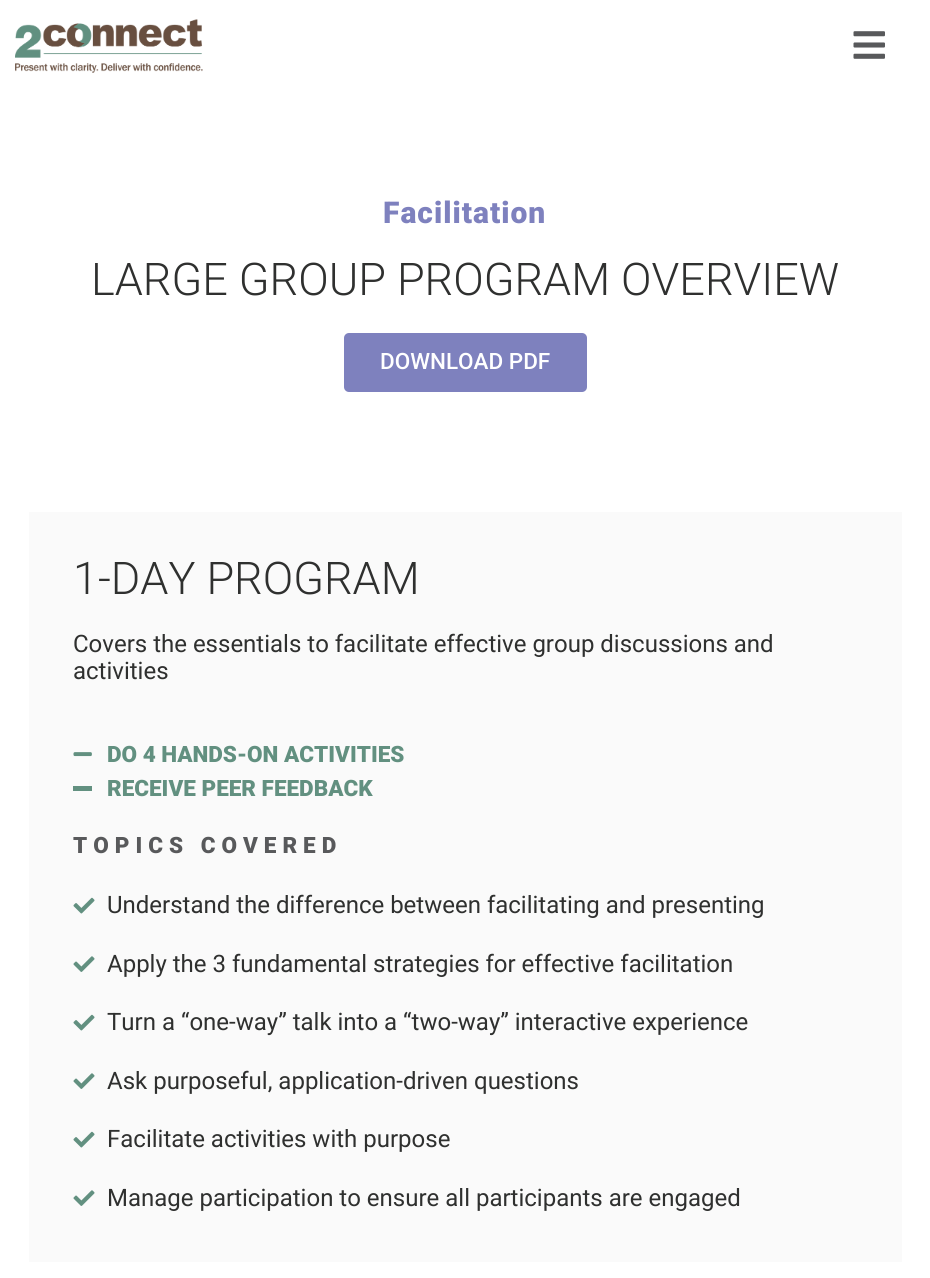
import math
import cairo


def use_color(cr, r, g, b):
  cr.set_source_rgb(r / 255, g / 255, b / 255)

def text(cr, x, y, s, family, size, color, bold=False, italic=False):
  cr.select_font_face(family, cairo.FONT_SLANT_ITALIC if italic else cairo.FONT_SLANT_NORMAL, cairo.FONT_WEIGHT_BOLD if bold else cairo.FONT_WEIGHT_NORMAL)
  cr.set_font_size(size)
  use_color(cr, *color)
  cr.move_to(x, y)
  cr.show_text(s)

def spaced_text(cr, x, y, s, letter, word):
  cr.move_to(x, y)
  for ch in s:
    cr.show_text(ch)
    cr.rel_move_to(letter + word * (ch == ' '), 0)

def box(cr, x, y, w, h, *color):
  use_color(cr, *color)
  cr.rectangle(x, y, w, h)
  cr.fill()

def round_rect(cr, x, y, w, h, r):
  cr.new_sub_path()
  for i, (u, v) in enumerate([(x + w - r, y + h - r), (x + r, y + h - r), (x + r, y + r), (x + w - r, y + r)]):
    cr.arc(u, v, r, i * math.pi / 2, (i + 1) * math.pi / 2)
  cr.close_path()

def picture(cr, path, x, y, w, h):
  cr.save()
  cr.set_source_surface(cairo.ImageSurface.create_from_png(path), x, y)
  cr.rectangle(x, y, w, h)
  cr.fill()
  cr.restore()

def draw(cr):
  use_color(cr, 255, 255, 255)
  cr.paint()
  picture(cr, "img_01.png", 15, 19, 188, 54)
  picture(cr, "img_02.png", 853, 31, 32, 28)
  use_color(cr, 126, 129, 190)
  round_rect(cr, 344, 333, 243, 59, 5)
  cr.fill()
  box(cr, 29, 512, 873, 750, 250, 250, 250)
  picture(cr, "img_03.png", 73, 752, 19, 5)
  box(cr, 73, 786, 19, 5, 98, 144, 128)
  picture(cr, "img_04.png", 73, 897, 22, 17)
  picture(cr, "img_05.png", 73, 956, 22, 16)
  picture(cr, "img_04.png", 73, 1014, 22, 17)
  picture(cr, "img_05.png", 73, 1073, 22, 16)
  picture(cr, "img_04.png", 73, 1131, 22, 17)
  picture(cr, "img_05.png", 73, 1190, 22, 16)
  cr.select_font_face("Roboto Black")
  cr.set_font_size(30)
  use_color(cr, 126, 129, 190)
  spaced_text(cr, 383, 223, "Facilitation", 1, 0)
  text(cr, 91, 295, "LARGE GROUP PROGRAM OVERVIEW", "Roboto Light", 45, (47, 48, 47))
  text(cr, 380, 369, "DOWNLOAD PDF", "Roboto Medium", 22.5, (255, 255, 255))
  text(cr, 73, 594, "1-DAY PROGRAM", "Roboto Light", 45, (47, 48, 47))
  text(cr, 73, 652, "Covers the essentials to facilitate effective group discussions and", "Roboto", 24, (47, 48, 47))
  text(cr, 73, 679, "activities", "Roboto", 24, (47, 48, 47))
  text(cr, 107, 762, "DO 4 HANDS-ON ACTIVITIES", "Roboto Black", 22.5, (98, 144, 128))
  text(cr, 107, 796, "RECEIVE PEER FEEDBACK", "Roboto Black", 22.5, (98, 144, 128))
  use_color(cr, 88, 89, 91)
  spaced_text(cr, 73, 853, "TOPICS COVERED", 6, 0)
  text(cr, 107, 913, "Understand the difference between facilitating and presenting", "Roboto", 24, (47, 48, 47))
  text(cr, 107, 972, "Apply the 3 fundamental strategies for effective facilitation", "Roboto", 24, (47, 48, 47))
  text(cr, 107, 1030, "Turn a “one-way” talk into a “two-way” interactive experience", "Roboto", 24, (47, 48, 47))
  text(cr, 107, 1089, "Ask purposeful, application-driven questions", "Roboto", 24, (47, 48, 47))
  text(cr, 107, 1147, "Facilitate activities with purpose", "Roboto", 24, (47, 48, 47))
  text(cr, 107, 1206, "Manage participation to ensure all participants are engaged", "Roboto", 24, (47, 48, 47))


surface = cairo.ImageSurface(cairo.FORMAT_RGB24, 930, 1278)
cr = cairo.Context(surface)
options = cairo.FontOptions()
options.set_hint_metrics(cairo.HINT_METRICS_OFF)
options.set_hint_style(cairo.HINT_STYLE_NONE)
cr.set_font_options(options)
cr.set_miter_limit(4)
draw(cr)
surface.write_to_png("out.png")
